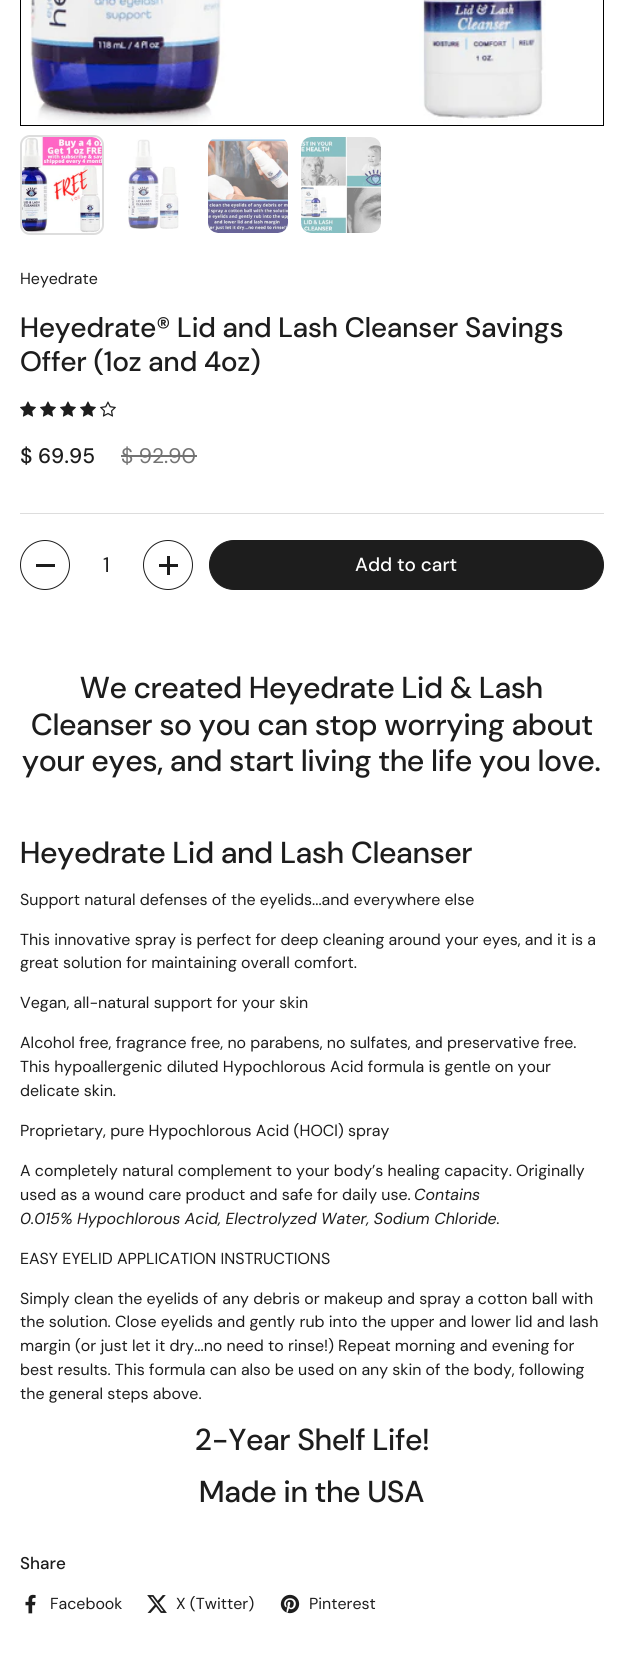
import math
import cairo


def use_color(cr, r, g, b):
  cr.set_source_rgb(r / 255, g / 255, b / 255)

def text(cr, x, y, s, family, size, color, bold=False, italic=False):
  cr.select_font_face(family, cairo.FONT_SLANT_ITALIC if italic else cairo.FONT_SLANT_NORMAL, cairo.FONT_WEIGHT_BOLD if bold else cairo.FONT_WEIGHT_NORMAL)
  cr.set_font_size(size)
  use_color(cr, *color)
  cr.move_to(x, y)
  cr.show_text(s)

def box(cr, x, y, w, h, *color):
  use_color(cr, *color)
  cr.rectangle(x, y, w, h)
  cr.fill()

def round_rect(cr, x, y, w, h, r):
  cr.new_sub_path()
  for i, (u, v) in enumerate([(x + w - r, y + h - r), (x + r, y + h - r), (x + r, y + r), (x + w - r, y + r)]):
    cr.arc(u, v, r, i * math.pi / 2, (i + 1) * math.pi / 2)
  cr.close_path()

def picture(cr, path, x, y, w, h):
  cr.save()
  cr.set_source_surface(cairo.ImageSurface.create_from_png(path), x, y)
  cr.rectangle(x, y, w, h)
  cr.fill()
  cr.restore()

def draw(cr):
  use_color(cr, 255, 255, 255)
  cr.paint()
  cr.rectangle(20.5, -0.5, 583, 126)
  use_color(cr, 0, 0, 0)
  cr.set_line_width(1)
  cr.stroke()
  picture(cr, "img_01.png", 30, 0, 516, 125)
  round_rect(cr, 21, 136, 82, 98, 9)
  use_color(cr, 221, 221, 221)
  cr.set_line_width(2)
  cr.stroke()
  picture(cr, "img_02.png", 22, 137, 80, 96)
  picture(cr, "img_03.png", 128, 139, 51, 90)
  picture(cr, "img_04.png", 208, 137, 80, 96)
  picture(cr, "img_05.png", 301, 137, 80, 96)
  picture(cr, "img_06.png", 20, 401, 16, 16)
  picture(cr, "img_06.png", 40, 401, 16, 16)
  picture(cr, "img_06.png", 60, 401, 16, 16)
  picture(cr, "img_06.png", 80, 401, 16, 16)
  picture(cr, "img_07.png", 100, 401, 16, 16)
  box(cr, 121, 455, 76, 2, 115, 115, 115)
  box(cr, 20, 513, 584, 1, 221, 221, 221)
  cr.arc(45, 565, 24.5, 0, 2 * math.pi)
  use_color(cr, 29, 29, 29)
  cr.set_line_width(1)
  cr.stroke()
  box(cr, 36, 564, 19, 3, 29, 29, 29)
  cr.arc(168, 565, 24.5, 0, 2 * math.pi)
  cr.stroke()
  box(cr, 167, 556, 3, 19, 29, 29, 29)
  box(cr, 159, 564, 19, 3, 29, 29, 29)
  round_rect(cr, 209.5, 540.5, 394, 49, 24.5)
  cr.fill_preserve()
  cr.stroke()
  picture(cr, "img_08.png", 25, 1594, 11, 20)
  picture(cr, "img_09.png", 147, 1595, 20, 18)
  picture(cr, "img_10.png", 280, 1594, 20, 20)
  text(cr, 20, 284, "Heyedrate", "DM Sans", 15.95, (29, 29, 29))
  text(cr, 20, 337, "Heyedrate® Lid and Lash Cleanser Savings", "DM Sans Medium", 28, (29, 29, 29))
  text(cr, 20, 371, "Offer (1oz and 4oz)", "DM Sans Medium", 28, (29, 29, 29))
  text(cr, 20, 463, "$ 69.95", "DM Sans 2 Medium", 21, (29, 29, 29))
  text(cr, 121, 463, "$ 92.90", "DM Sans", 21, (115, 115, 115))
  text(cr, 103, 572, "1", "DM Sans", 21, (29, 29, 29))
  text(cr, 355, 571, "Add to cart", "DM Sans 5 Medium", 19, (255, 255, 255))
  text(cr, 80, 698, "We created Heyedrate Lid & Lash", "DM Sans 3 Medium", 30.3, (29, 29, 29))
  text(cr, 31, 735, "Cleanser so you can stop worrying about", "DM Sans 3 Medium", 30.3, (29, 29, 29))
  text(cr, 22, 771, "your eyes, and start living the life you love.", "DM Sans 3 Medium", 30.3, (29, 29, 29))
  text(cr, 20, 863, "Heyedrate Lid and Lash Cleanser", "DM Sans 3 Medium", 30.3, (29, 29, 29))
  text(cr, 20, 905, "Support natural defenses of the eyelids...and everywhere else", "DM Sans", 15.95, (29, 29, 29))
  text(cr, 20, 945, "This innovative spray is perfect for deep cleaning around your eyes, and it is a", "DM Sans", 15.95, (29, 29, 29))
  text(cr, 20, 968, "great solution for maintaining overall comfort.", "DM Sans", 15.95, (29, 29, 29))
  text(cr, 20, 1008, "Vegan, all-natural support for your skin", "DM Sans", 15.95, (29, 29, 29))
  text(cr, 20, 1048, "Alcohol free, fragrance free, no parabens, no sulfates, and preservative free.", "DM Sans", 15.95, (29, 29, 29))
  text(cr, 20, 1072, "This hypoallergenic diluted Hypochlorous Acid formula is gentle on your", "DM Sans", 15.95, (29, 29, 29))
  text(cr, 20, 1096, "delicate skin.", "DM Sans", 15.95, (29, 29, 29))
  text(cr, 20, 1136, "Proprietary, pure Hypochlorous Acid (HOCl) spray", "DM Sans", 15.95, (29, 29, 29))
  text(cr, 20, 1176, "A completely natural complement to your body’s healing capacity. Originally", "DM Sans", 15.95, (29, 29, 29))
  text(cr, 20, 1200, "used as a wound care product and safe for daily use.", "DM Sans", 15.95, (29, 29, 29))
  text(cr, 414, 1200, "Contains", "DM Sans", 15.95, (29, 29, 29), italic=True)
  text(cr, 20, 1224, "0.015% Hypochlorous Acid, Electrolyzed Water, Sodium Chloride.", "DM Sans", 15.95, (29, 29, 29), italic=True)
  text(cr, 20, 1264, "EASY EYELID APPLICATION INSTRUCTIONS", "DM Sans", 15.95, (29, 29, 29))
  text(cr, 20, 1304, "Simply clean the eyelids of any debris or makeup and spray a cotton ball with", "DM Sans", 15.95, (29, 29, 29))
  text(cr, 20, 1327, "the solution. Close eyelids and gently rub into the upper and lower lid and lash", "DM Sans", 15.95, (29, 29, 29))
  text(cr, 20, 1351, "margin (or just let it dry...no need to rinse!) Repeat morning and evening for", "DM Sans", 15.95, (29, 29, 29))
  text(cr, 20, 1375, "best results. This formula can also be used on any skin of the body, following", "DM Sans", 15.95, (29, 29, 29))
  text(cr, 20, 1399, "the general steps above.", "DM Sans", 15.95, (29, 29, 29))
  text(cr, 195, 1450, "2-Year Shelf Life!", "DM Sans 3 Medium", 30.3, (29, 29, 29))
  text(cr, 199, 1502, "Made in the USA", "DM Sans 3 Medium", 30.3, (29, 29, 29))
  text(cr, 20, 1569, "Share", "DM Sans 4 Medium", 17, (29, 29, 29))
  text(cr, 50, 1609, "Facebook", "DM Sans", 15.95, (29, 29, 29))
  text(cr, 176, 1609, "X (Twitter)", "DM Sans", 15.95, (29, 29, 29))
  text(cr, 309, 1609, "Pinterest", "DM Sans", 15.95, (29, 29, 29))


surface = cairo.ImageSurface(cairo.FORMAT_RGB24, 624, 1670)
cr = cairo.Context(surface)
options = cairo.FontOptions()
options.set_hint_metrics(cairo.HINT_METRICS_OFF)
options.set_hint_style(cairo.HINT_STYLE_NONE)
cr.set_font_options(options)
cr.set_miter_limit(4)
draw(cr)
surface.write_to_png("out.png")
